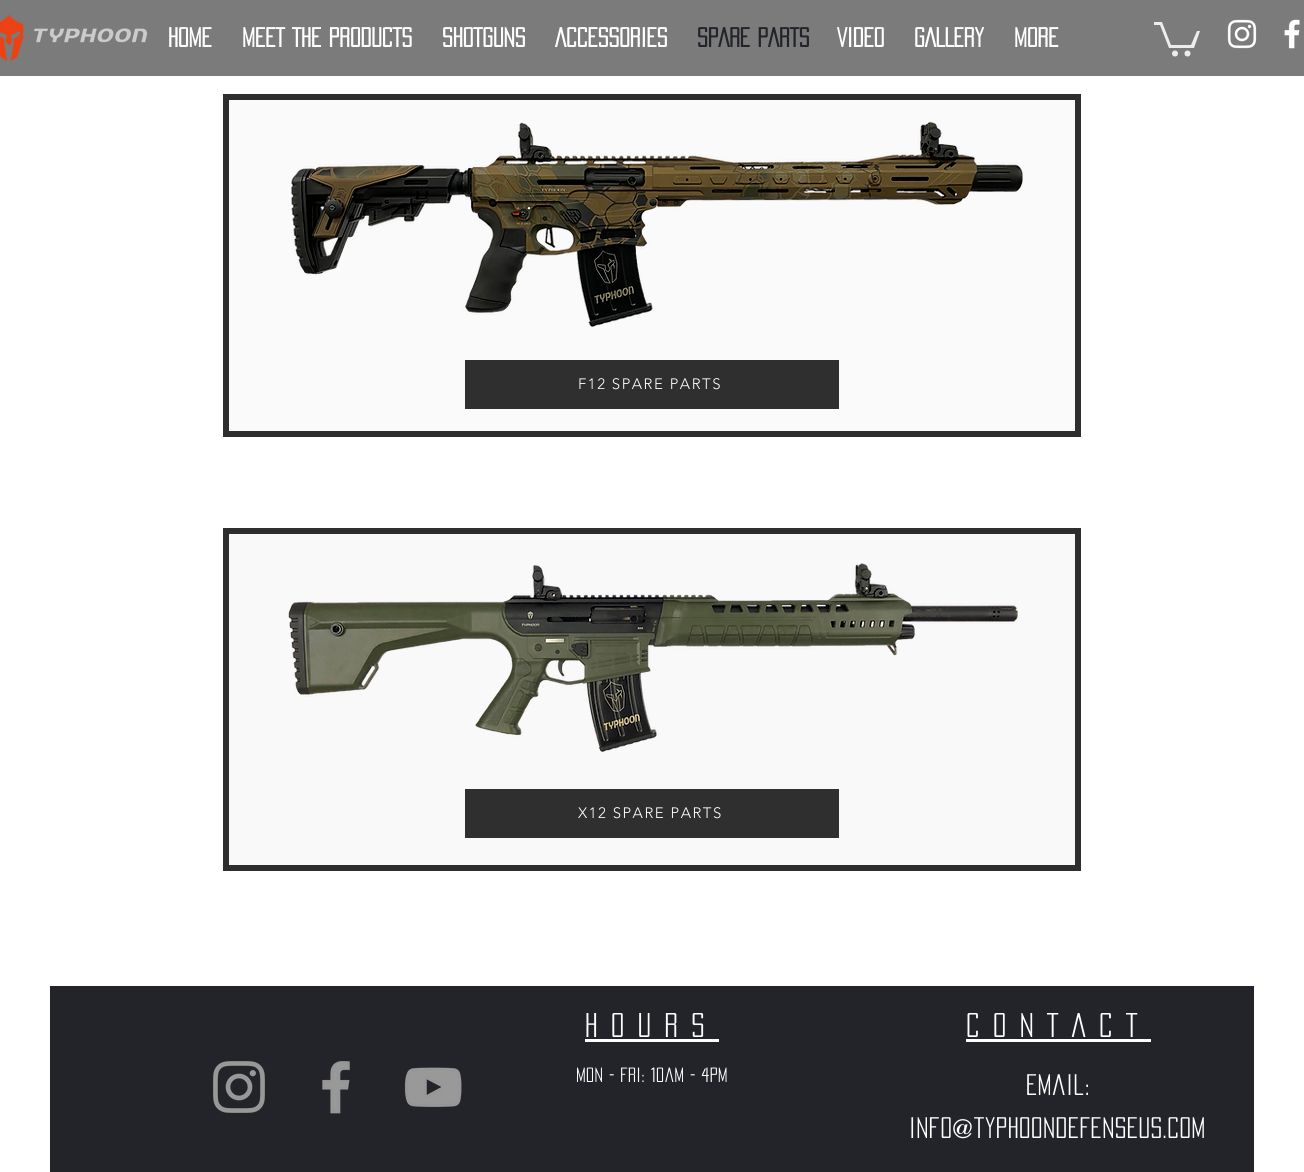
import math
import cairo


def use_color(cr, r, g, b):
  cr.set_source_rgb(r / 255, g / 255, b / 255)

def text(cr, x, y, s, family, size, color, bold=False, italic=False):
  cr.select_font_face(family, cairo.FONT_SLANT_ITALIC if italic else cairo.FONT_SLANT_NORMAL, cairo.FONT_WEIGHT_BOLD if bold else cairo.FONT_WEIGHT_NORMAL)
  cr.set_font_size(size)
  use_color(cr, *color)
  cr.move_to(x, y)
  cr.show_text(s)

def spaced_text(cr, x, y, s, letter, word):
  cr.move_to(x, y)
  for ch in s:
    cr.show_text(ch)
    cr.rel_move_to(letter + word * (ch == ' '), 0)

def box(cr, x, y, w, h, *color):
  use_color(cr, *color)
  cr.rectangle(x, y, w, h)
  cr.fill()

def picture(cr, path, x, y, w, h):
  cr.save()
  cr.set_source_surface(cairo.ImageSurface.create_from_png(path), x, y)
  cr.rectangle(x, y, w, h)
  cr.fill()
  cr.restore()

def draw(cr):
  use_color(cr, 255, 255, 255)
  cr.paint()
  box(cr, 0, 0, 1304, 76, 123, 123, 123)
  picture(cr, "img_01.png", 0, 15, 148, 46)
  use_color(cr, 237, 237, 238)
  cr.new_path()
  cr.move_to(1200, 31)
  cr.line_to(1194, 48)
  cr.line_to(1169, 48)
  cr.line_to(1160, 25)
  cr.line_to(1154, 25)
  cr.line_to(1154, 22)
  cr.line_to(1162, 22)
  cr.line_to(1171, 45)
  cr.line_to(1191, 45)
  cr.line_to(1197, 31)
  cr.fill()
  cr.arc(1187.5, 53.5, 3, 0, 2 * math.pi)
  cr.fill()
  cr.arc(1175, 53.5, 3, 0, 2 * math.pi)
  cr.fill()
  picture(cr, "img_02.png", 1227, 19, 30, 30)
  picture(cr, "img_03.png", 1284, 19, 16, 30)
  use_color(cr, 250, 250, 250)
  cr.rectangle(226, 97, 852, 337)
  cr.fill_preserve()
  use_color(cr, 47, 46, 46)
  cr.set_line_width(6)
  cr.stroke()
  picture(cr, "img_04.png", 291, 121, 732, 207)
  box(cr, 465, 360, 374, 49, 47, 47, 48)
  cr.rectangle(226, 531, 852, 337)
  use_color(cr, 47, 46, 46)
  cr.stroke()
  cr.set_source_rgba(0.184, 0.184, 0.188, 0.03)
  cr.rectangle(229, 534, 846, 331)
  cr.fill()
  picture(cr, "img_05.png", 288, 563, 730, 189)
  box(cr, 465, 789, 374, 49, 47, 47, 48)
  box(cr, 50, 986, 1204, 186, 34, 36, 41)
  box(cr, 585, 1039, 134, 3, 255, 255, 255)
  box(cr, 966, 1039, 185, 3, 255, 255, 255)
  picture(cr, "img_06.png", 213, 1061, 52, 52)
  picture(cr, "img_07.png", 322, 1061, 28, 53)
  picture(cr, "img_08.png", 404, 1067, 58, 40)
  text(cr, 168, 47, "HOME", "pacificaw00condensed", 24, (255, 255, 255), bold=True)
  text(cr, 242, 47, "MEET THE PRODUCTS", "pacificaw00condensed", 24, (255, 255, 255), bold=True)
  text(cr, 442, 47, "SHOTGUNS", "pacificaw00condensed", 24, (255, 255, 255), bold=True)
  text(cr, 555, 47, "ACCESSORIES", "pacificaw00condensed", 24, (255, 255, 255), bold=True)
  text(cr, 697, 47, "SPARE PARTS", "pacificaw00condensed", 24, (34, 36, 41), bold=True)
  text(cr, 837, 47, "VIDEO", "pacificaw00condensed", 24, (255, 255, 255), bold=True)
  text(cr, 914, 47, "GALLERY", "pacificaw00condensed", 24, (255, 255, 255), bold=True)
  text(cr, 1014, 47, "More", "pacificaw00condensed", 24, (255, 255, 255), bold=True)
  cr.select_font_face("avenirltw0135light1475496 Light")
  cr.set_font_size(15)
  spaced_text(cr, 578, 389, "F12 SPARE PARTS", 1.5, 0)
  spaced_text(cr, 578, 818, "X12 SPARE PARTS", 1.5, 0)
  cr.select_font_face("pacificaw00condensed")
  cr.set_font_size(30)
  spaced_text(cr, 585, 1037, "HOURS", 13.5, 0)
  spaced_text(cr, 966, 1037, "CONTACT", 13.5, 0)
  cr.set_font_size(18)
  spaced_text(cr, 576, 1082, "Mon - Fri: 10am - 4pm", 0.4, 0)
  cr.set_font_size(26)
  spaced_text(cr, 1026, 1095, "Email:", 0.5, 0)
  spaced_text(cr, 909, 1138, "info@tYPHOONDEFENSEUS.COM", 0.5, 0)


surface = cairo.ImageSurface(cairo.FORMAT_RGB24, 1304, 1172)
cr = cairo.Context(surface)
options = cairo.FontOptions()
options.set_hint_metrics(cairo.HINT_METRICS_OFF)
options.set_hint_style(cairo.HINT_STYLE_NONE)
cr.set_font_options(options)
cr.set_miter_limit(4)
draw(cr)
surface.write_to_png("out.png")
